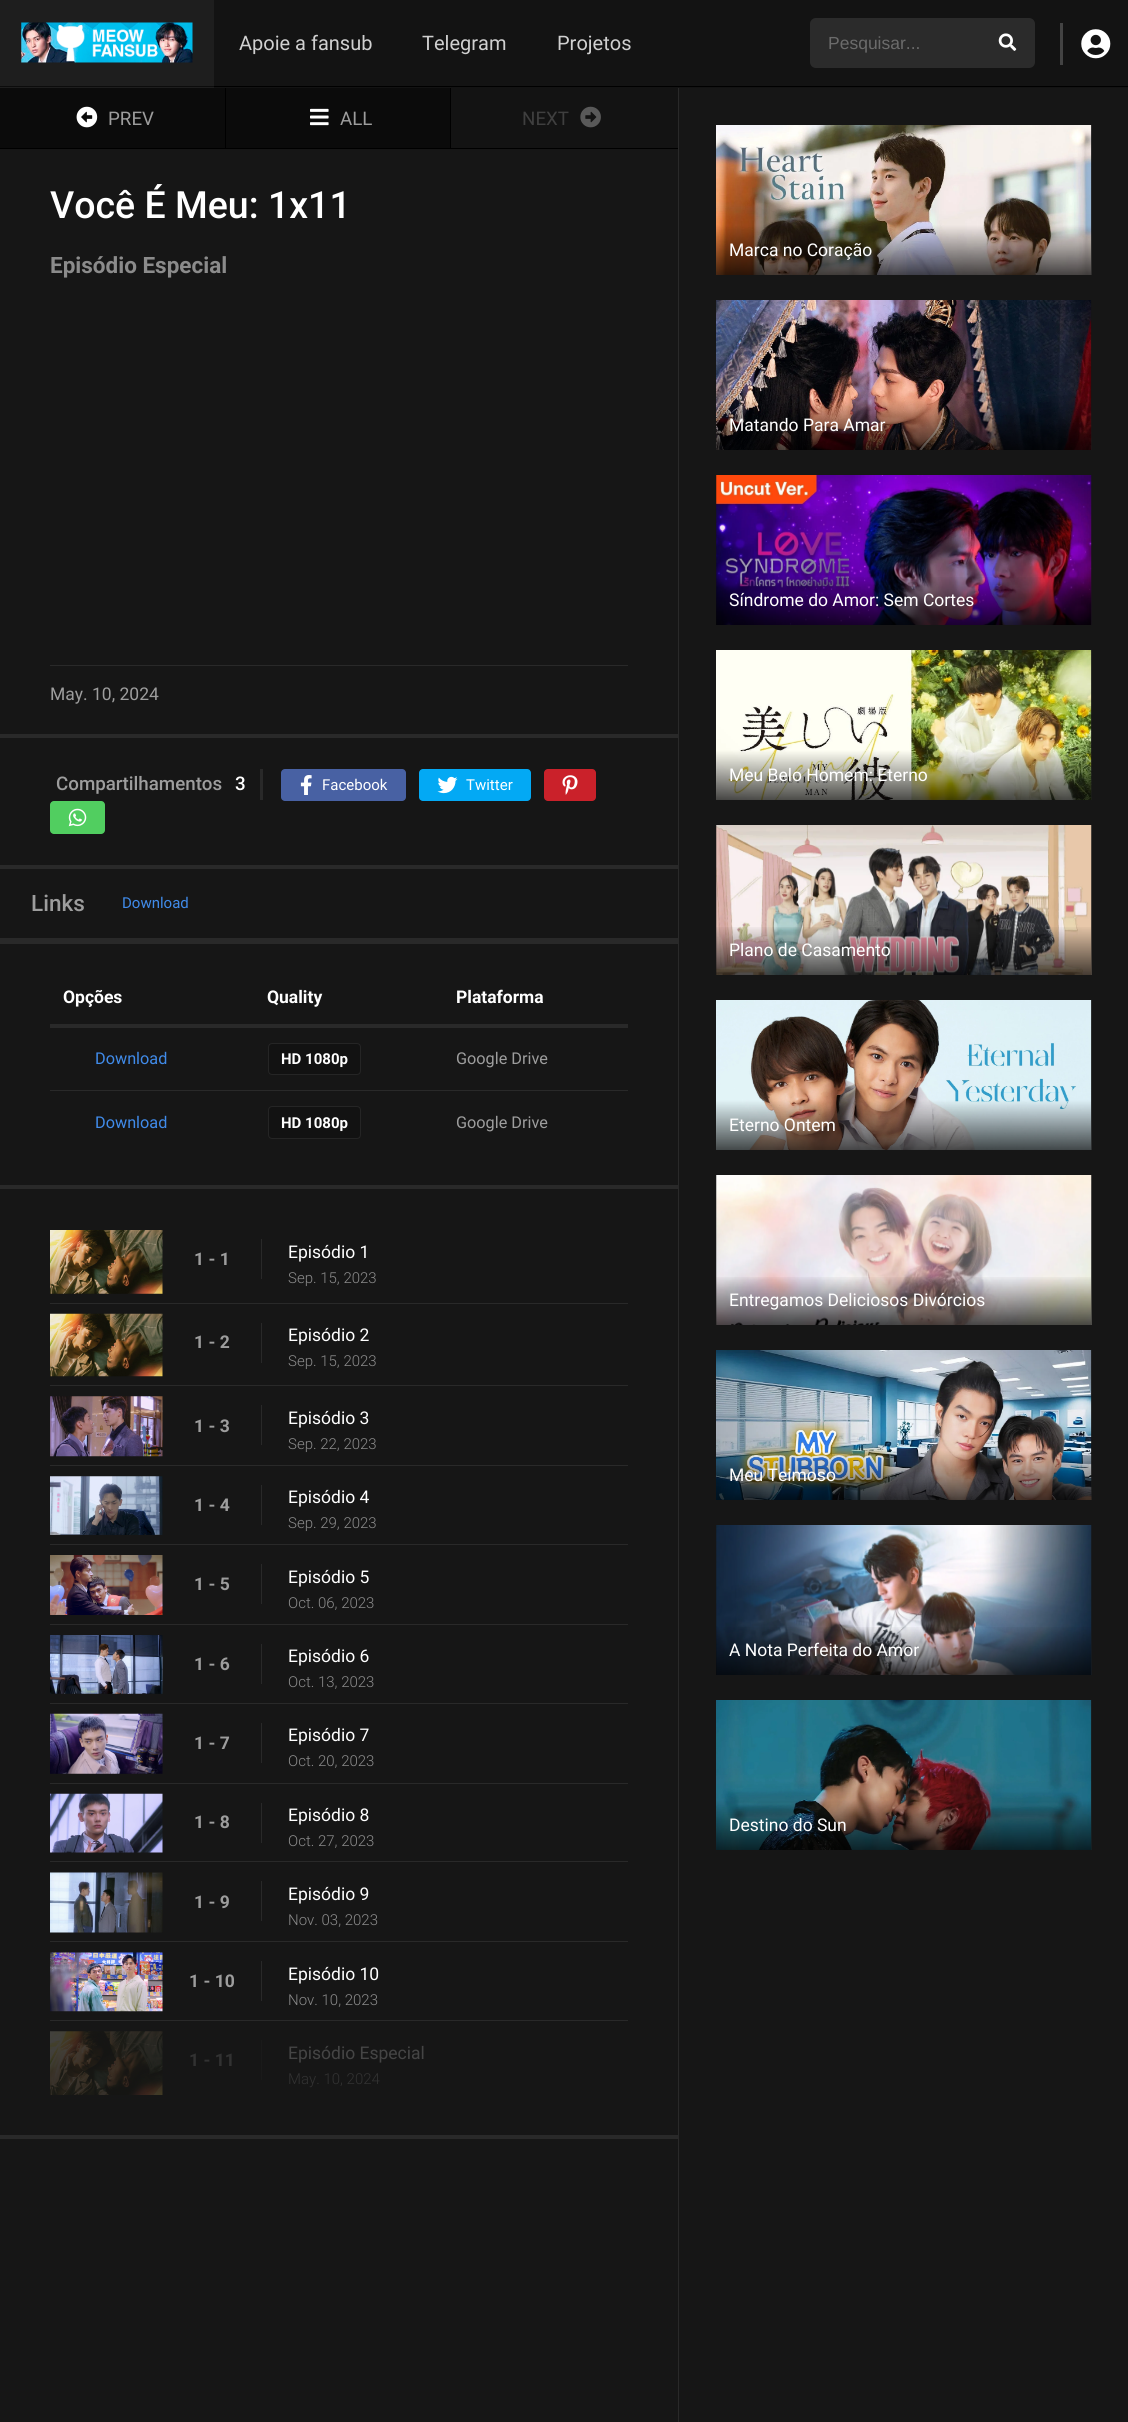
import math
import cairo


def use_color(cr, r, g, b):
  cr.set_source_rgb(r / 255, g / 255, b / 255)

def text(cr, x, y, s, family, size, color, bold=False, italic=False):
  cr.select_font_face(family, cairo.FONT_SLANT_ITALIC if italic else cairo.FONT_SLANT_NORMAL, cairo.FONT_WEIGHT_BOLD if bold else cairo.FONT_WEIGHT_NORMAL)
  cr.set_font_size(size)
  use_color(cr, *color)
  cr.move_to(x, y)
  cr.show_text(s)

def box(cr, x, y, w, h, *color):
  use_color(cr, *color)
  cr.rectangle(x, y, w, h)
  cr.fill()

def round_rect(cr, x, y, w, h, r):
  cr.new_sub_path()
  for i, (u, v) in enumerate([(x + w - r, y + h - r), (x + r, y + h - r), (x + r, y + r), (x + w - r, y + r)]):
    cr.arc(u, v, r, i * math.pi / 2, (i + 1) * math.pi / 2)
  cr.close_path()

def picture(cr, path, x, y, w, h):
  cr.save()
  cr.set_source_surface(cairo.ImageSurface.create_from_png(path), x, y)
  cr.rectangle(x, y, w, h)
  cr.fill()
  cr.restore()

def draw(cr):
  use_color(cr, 63, 63, 63)
  cr.paint()
  cr.set_source_rgba(0.059, 0.059, 0.059, 0.9)
  cr.rectangle(0, 0, 1128, 88)
  cr.fill()
  box(cr, 0, 86, 1128, 1, 0, 0, 0)
  cr.set_source_rgba(1, 1, 1, 0.05)
  cr.rectangle(0, 0, 214, 88)
  cr.fill()
  picture(cr, "img_01.png", 21, 22, 172, 41)
  use_color(cr, 43, 43, 43)
  round_rect(cr, 810, 18, 225, 50, 6)
  cr.fill()
  picture(cr, "img_02.png", 998, 33, 19, 18)
  box(cr, 1060, 23, 3, 42, 67, 67, 67)
  picture(cr, "img_03.png", 1081, 29, 30, 30)
  box(cr, 0, 88, 1128, 2334, 22, 22, 22)
  box(cr, 678, 88, 1, 2334, 41, 41, 41)
  box(cr, 0, 148, 678, 1, 0, 0, 0)
  box(cr, 225, 88, 1, 60, 0, 0, 0)
  box(cr, 0, 88, 225, 60, 11, 11, 11)
  picture(cr, "img_04.png", 76, 106, 22, 22)
  box(cr, 450, 88, 1, 60, 0, 0, 0)
  box(cr, 226, 88, 224, 60, 11, 11, 11)
  picture(cr, "img_05.png", 310, 108, 19, 18)
  box(cr, 451, 88, 227, 60, 19, 19, 19)
  picture(cr, "img_06.png", 580, 106, 21, 22)
  box(cr, 0, 734, 678, 4, 41, 41, 41)
  box(cr, 50, 665, 578, 1, 41, 41, 41)
  box(cr, 0, 865, 678, 4, 41, 41, 41)
  box(cr, 260, 769, 3, 31, 41, 41, 41)
  use_color(cr, 72, 97, 163)
  round_rect(cr, 281, 769, 125, 32, 4)
  cr.fill()
  picture(cr, "img_07.png", 300, 775, 12, 20)
  use_color(cr, 3, 169, 244)
  round_rect(cr, 419, 769, 112, 32, 4)
  cr.fill()
  picture(cr, "img_08.png", 437, 776, 21, 18)
  use_color(cr, 202, 33, 42)
  round_rect(cr, 544, 769, 52, 32, 4)
  cr.fill()
  picture(cr, "img_09.png", 562, 775, 16, 20)
  use_color(cr, 81, 206, 96)
  round_rect(cr, 50, 801, 55, 33, 4)
  cr.fill()
  picture(cr, "img_10.png", 68, 808, 19, 19)
  box(cr, 0, 938, 678, 6, 41, 41, 41)
  box(cr, 0, 1185, 678, 4, 41, 41, 41)
  box(cr, 50, 1024, 578, 4, 41, 41, 41)
  box(cr, 50, 1090, 578, 1, 41, 41, 41)
  use_color(cr, 18, 18, 18)
  round_rect(cr, 268.5, 1043.5, 92, 31, 3.5)
  cr.fill_preserve()
  use_color(cr, 37, 37, 37)
  cr.set_line_width(1)
  cr.stroke()
  use_color(cr, 18, 18, 18)
  round_rect(cr, 268.5, 1106.5, 92, 32, 3.5)
  cr.fill_preserve()
  use_color(cr, 37, 37, 37)
  cr.stroke()
  box(cr, 0, 2135, 678, 4, 41, 41, 41)
  box(cr, 50, 1303, 578, 1, 41, 41, 41)
  picture(cr, "img_11.png", 50, 1230, 113, 64)
  box(cr, 261, 1239, 1, 40, 41, 41, 41)
  box(cr, 50, 1385, 578, 1, 41, 41, 41)
  picture(cr, "img_12.png", 50, 1313, 113, 64)
  box(cr, 261, 1323, 1, 40, 41, 41, 41)
  box(cr, 50, 1465, 578, 1, 41, 41, 41)
  picture(cr, "img_13.png", 50, 1396, 113, 61)
  box(cr, 261, 1405, 1, 40, 41, 41, 41)
  box(cr, 50, 1544, 578, 1, 41, 41, 41)
  picture(cr, "img_14.png", 50, 1476, 113, 59)
  box(cr, 261, 1485, 1, 40, 41, 41, 41)
  box(cr, 50, 1624, 578, 1, 41, 41, 41)
  picture(cr, "img_15.png", 50, 1555, 113, 60)
  box(cr, 261, 1564, 1, 40, 41, 41, 41)
  box(cr, 50, 1703, 578, 1, 41, 41, 41)
  picture(cr, "img_16.png", 50, 1635, 113, 59)
  box(cr, 261, 1644, 1, 40, 41, 41, 41)
  box(cr, 50, 1783, 578, 1, 41, 41, 41)
  picture(cr, "img_17.png", 50, 1713, 113, 61)
  box(cr, 261, 1723, 1, 40, 41, 41, 41)
  box(cr, 50, 1861, 578, 1, 41, 41, 41)
  picture(cr, "img_18.png", 50, 1793, 113, 60)
  box(cr, 261, 1803, 1, 40, 41, 41, 41)
  box(cr, 50, 1941, 578, 1, 41, 41, 41)
  picture(cr, "img_19.png", 50, 1872, 113, 61)
  box(cr, 261, 1881, 1, 40, 41, 41, 41)
  box(cr, 50, 2020, 578, 1, 41, 41, 41)
  picture(cr, "img_20.png", 50, 1952, 113, 60)
  box(cr, 261, 1961, 1, 40, 41, 41, 41)
  picture(cr, "img_21.png", 50, 2031, 113, 64)
  box(cr, 261, 2040, 1, 40, 26, 26, 26)
  picture(cr, "img_22.png", 716, 125, 376, 150)
  picture(cr, "img_23.png", 716, 300, 376, 150)
  picture(cr, "img_24.png", 716, 475, 376, 150)
  gradient = cairo.LinearGradient(904, 575, 904, 625)
  gradient.add_color_stop_rgba(0, 0, 0, 0, 0)
  gradient.add_color_stop_rgba(1, 0, 0, 0, 0.7)
  cr.set_source(gradient)
  cr.rectangle(716, 577, 375, 48)
  cr.fill()
  picture(cr, "img_25.png", 716, 650, 376, 150)
  picture(cr, "img_26.png", 716, 825, 376, 150)
  gradient = cairo.LinearGradient(904, 925, 904, 975)
  gradient.add_color_stop_rgba(0, 0, 0, 0, 0)
  gradient.add_color_stop_rgba(1, 0, 0, 0, 0.7)
  cr.set_source(gradient)
  cr.rectangle(716, 927, 375, 48)
  cr.fill()
  picture(cr, "img_27.png", 716, 1000, 376, 150)
  picture(cr, "img_28.png", 716, 1175, 376, 150)
  gradient = cairo.LinearGradient(904, 1275, 904, 1325)
  gradient.add_color_stop_rgba(0, 0, 0, 0, 0)
  gradient.add_color_stop_rgba(1, 0, 0, 0, 0.7)
  cr.set_source(gradient)
  cr.rectangle(716, 1277, 375, 48)
  cr.fill()
  picture(cr, "img_29.png", 716, 1350, 376, 150)
  picture(cr, "img_30.png", 716, 1525, 376, 150)
  gradient = cairo.LinearGradient(904, 1625, 904, 1675)
  gradient.add_color_stop_rgba(0, 0, 0, 0, 0)
  gradient.add_color_stop_rgba(1, 0, 0, 0, 0.7)
  cr.set_source(gradient)
  cr.rectangle(716, 1627, 375, 48)
  cr.fill()
  picture(cr, "img_31.png", 716, 1700, 376, 150)
  text(cr, 239, 50, "Apoie a fansub", "Roboto", 20, (208, 208, 208))
  text(cr, 422, 50, "Telegram", "Roboto", 20, (208, 208, 208))
  text(cr, 557, 50, "Projetos", "Roboto", 20, (208, 208, 208))
  text(cr, 828, 49, "Pesquisar...", "Liberation Sans", 17.5, (107, 107, 107))
  text(cr, 108, 125, "PREV", "Roboto", 18.75, (157, 157, 157))
  text(cr, 340, 125, "ALL", "Roboto", 18.75, (157, 157, 157))
  text(cr, 522, 125, "NEXT", "Roboto", 18.75, (63, 63, 63))
  text(cr, 50, 218, "Você É Meu: 1x11", "Roboto Medium", 37.5, (255, 255, 255))
  text(cr, 50, 273, "Episódio Especial", "Roboto", 22.5, (139, 139, 139), bold=True)
  text(cr, 50, 700, "May. 10, 2024", "Roboto", 17.5, (157, 157, 157))
  text(cr, 56, 790, "Compartilhamentos", "Roboto Medium", 18.75, (157, 157, 157))
  text(cr, 235, 790, "3", "Roboto Medium", 18.75, (255, 255, 255))
  text(cr, 322, 790, "Facebook", "Roboto", 15, (255, 255, 255))
  text(cr, 466, 790, "Twitter", "Roboto", 15, (255, 255, 255))
  text(cr, 31, 911, "Links", "Roboto Medium", 22.5, (157, 157, 157))
  text(cr, 122, 908, "Download", "Roboto", 15, (64, 139, 234))
  text(cr, 63, 1003, "Opções", "Roboto", 17.5, (255, 255, 255), bold=True)
  text(cr, 267, 1003, "Quality", "Roboto", 17.5, (255, 255, 255), bold=True)
  text(cr, 456, 1003, "Plataforma", "Roboto", 17.5, (255, 255, 255), bold=True)
  text(cr, 95, 1064, "Download", "Roboto", 16.25, (64, 139, 234))
  text(cr, 281, 1064, "HD 1080p", "Roboto", 15, (255, 255, 255), bold=True)
  text(cr, 456, 1064, "Google Drive", "Roboto", 16.25, (157, 157, 157))
  text(cr, 95, 1128, "Download", "Roboto", 16.25, (64, 139, 234))
  text(cr, 281, 1128, "HD 1080p", "Roboto", 15, (255, 255, 255), bold=True)
  text(cr, 456, 1128, "Google Drive", "Roboto", 16.25, (157, 157, 157))
  text(cr, 194, 1265, "1 - 1", "Roboto", 17.5, (157, 157, 157), bold=True)
  text(cr, 288, 1258, "Episódio 1", "Roboto", 17.5, (255, 255, 255))
  text(cr, 288, 1283, "Sep. 15, 2023", "Roboto Light", 15, (139, 139, 139))
  text(cr, 194, 1348, "1 - 2", "Roboto", 17.5, (157, 157, 157), bold=True)
  text(cr, 288, 1341, "Episódio 2", "Roboto", 17.5, (255, 255, 255))
  text(cr, 288, 1366, "Sep. 15, 2023", "Roboto Light", 15, (139, 139, 139))
  text(cr, 194, 1432, "1 - 3", "Roboto", 17.5, (157, 157, 157), bold=True)
  text(cr, 288, 1424, "Episódio 3", "Roboto", 17.5, (255, 255, 255))
  text(cr, 288, 1449, "Sep. 22, 2023", "Roboto Light", 15, (139, 139, 139))
  text(cr, 194, 1511, "1 - 4", "Roboto", 17.5, (157, 157, 157), bold=True)
  text(cr, 288, 1503, "Episódio 4", "Roboto", 17.5, (255, 255, 255))
  text(cr, 288, 1528, "Sep. 29, 2023", "Roboto Light", 15, (139, 139, 139))
  text(cr, 194, 1590, "1 - 5", "Roboto", 17.5, (157, 157, 157), bold=True)
  text(cr, 288, 1583, "Episódio 5", "Roboto", 17.5, (255, 255, 255))
  text(cr, 288, 1608, "Oct. 06, 2023", "Roboto Light", 15, (139, 139, 139))
  text(cr, 194, 1670, "1 - 6", "Roboto", 17.5, (157, 157, 157), bold=True)
  text(cr, 288, 1662, "Episódio 6", "Roboto", 17.5, (255, 255, 255))
  text(cr, 288, 1687, "Oct. 13, 2023", "Roboto Light", 15, (139, 139, 139))
  text(cr, 194, 1749, "1 - 7", "Roboto", 17.5, (157, 157, 157), bold=True)
  text(cr, 288, 1741, "Episódio 7", "Roboto", 17.5, (255, 255, 255))
  text(cr, 288, 1766, "Oct. 20, 2023", "Roboto Light", 15, (139, 139, 139))
  text(cr, 194, 1828, "1 - 8", "Roboto", 17.5, (157, 157, 157), bold=True)
  text(cr, 288, 1821, "Episódio 8", "Roboto", 17.5, (255, 255, 255))
  text(cr, 288, 1846, "Oct. 27, 2023", "Roboto Light", 15, (139, 139, 139))
  text(cr, 194, 1908, "1 - 9", "Roboto", 17.5, (157, 157, 157), bold=True)
  text(cr, 288, 1900, "Episódio 9", "Roboto", 17.5, (255, 255, 255))
  text(cr, 288, 1925, "Nov. 03, 2023", "Roboto Light", 15, (139, 139, 139))
  text(cr, 189, 1987, "1 - 10", "Roboto", 17.5, (157, 157, 157), bold=True)
  text(cr, 288, 1980, "Episódio 10", "Roboto", 17.5, (255, 255, 255))
  text(cr, 288, 2005, "Nov. 10, 2023", "Roboto Light", 15, (139, 139, 139))
  text(cr, 189, 2066, "1 - 11", "Roboto", 17.5, (50, 50, 50), bold=True)
  text(cr, 288, 2059, "Episódio Especial", "Roboto", 17.5, (69, 69, 69))
  text(cr, 288, 2084, "May. 10, 2024", "Roboto Light", 15, (50, 50, 50))
  text(cr, 729, 256, "Marca no Coração", "Roboto", 17.5, (255, 255, 255))
  text(cr, 729, 431, "Matando Para Amar", "Roboto", 17.5, (255, 255, 255))
  text(cr, 729, 606, "Síndrome do Amor: Sem Cortes", "Roboto", 17.5, (255, 255, 255))
  text(cr, 729, 781, "Meu Belo Homem: Eterno", "Roboto", 17.5, (255, 255, 255))
  text(cr, 729, 956, "Plano de Casamento", "Roboto", 17.5, (255, 255, 255))
  text(cr, 729, 1131, "Eterno Ontem", "Roboto", 17.5, (255, 255, 255))
  text(cr, 729, 1306, "Entregamos Deliciosos Divórcios", "Roboto", 17.5, (255, 255, 255))
  text(cr, 729, 1481, "Meu Teimoso", "Roboto", 17.5, (255, 255, 255))
  text(cr, 729, 1656, "A Nota Perfeita do Amor", "Roboto", 17.5, (255, 255, 255))
  text(cr, 729, 1831, "Destino do Sun", "Roboto", 17.5, (255, 255, 255))


surface = cairo.ImageSurface(cairo.FORMAT_RGB24, 1128, 2422)
cr = cairo.Context(surface)
options = cairo.FontOptions()
options.set_hint_metrics(cairo.HINT_METRICS_OFF)
options.set_hint_style(cairo.HINT_STYLE_NONE)
cr.set_font_options(options)
cr.set_miter_limit(4)
draw(cr)
surface.write_to_png("out.png")
